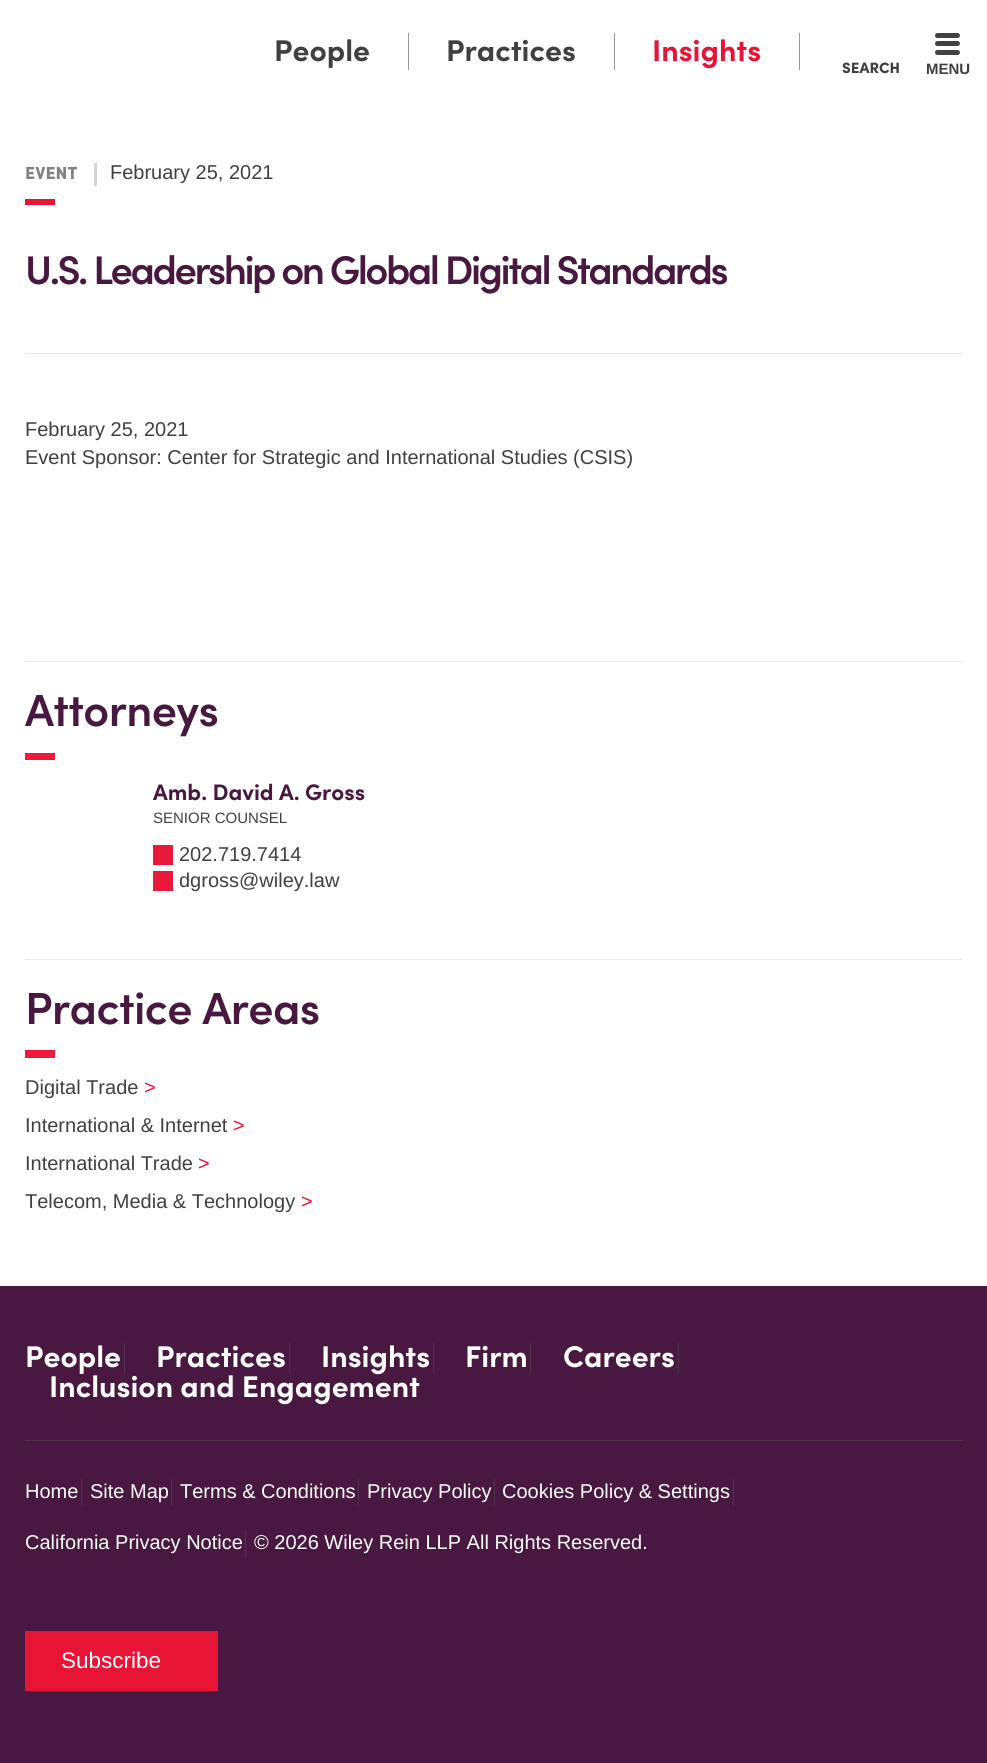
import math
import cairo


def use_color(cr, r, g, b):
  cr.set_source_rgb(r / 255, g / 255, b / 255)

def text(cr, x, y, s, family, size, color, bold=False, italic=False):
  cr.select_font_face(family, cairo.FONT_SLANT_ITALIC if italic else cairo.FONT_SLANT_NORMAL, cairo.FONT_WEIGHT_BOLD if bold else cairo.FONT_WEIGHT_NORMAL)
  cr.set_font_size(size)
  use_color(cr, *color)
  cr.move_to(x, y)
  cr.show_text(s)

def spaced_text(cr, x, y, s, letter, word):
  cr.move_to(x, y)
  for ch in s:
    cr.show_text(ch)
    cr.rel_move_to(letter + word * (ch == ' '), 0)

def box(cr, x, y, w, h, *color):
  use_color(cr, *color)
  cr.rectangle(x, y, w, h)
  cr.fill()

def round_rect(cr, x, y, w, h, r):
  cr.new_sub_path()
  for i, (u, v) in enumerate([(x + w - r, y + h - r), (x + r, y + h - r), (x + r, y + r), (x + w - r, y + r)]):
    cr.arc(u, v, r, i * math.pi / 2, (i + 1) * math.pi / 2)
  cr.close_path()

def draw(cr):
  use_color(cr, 255, 255, 255)
  cr.paint()
  box(cr, 408, 33, 1, 37, 151, 151, 151)
  box(cr, 614, 33, 1, 37, 151, 151, 151)
  box(cr, 799, 33, 1, 37, 151, 151, 151)
  use_color(cr, 65, 64, 66)
  round_rect(cr, 935, 33, 25, 5, 2.5)
  cr.fill()
  round_rect(cr, 935, 41, 25, 5, 2.5)
  cr.fill()
  round_rect(cr, 935, 50, 25, 5, 2.5)
  cr.fill()
  box(cr, 25, 353, 938, 1, 230, 231, 232)
  box(cr, 94, 163, 3, 23, 211, 212, 214)
  box(cr, 25, 199, 30, 6, 231, 20, 53)
  box(cr, 25, 661, 938, 1, 233, 234, 235)
  box(cr, 25, 753, 30, 7, 237, 26, 59)
  box(cr, 153, 845, 20, 20, 232, 25, 58)
  box(cr, 153, 871, 20, 20, 232, 25, 58)
  box(cr, 25, 959, 938, 1, 233, 234, 235)
  box(cr, 25, 1050, 30, 8, 237, 26, 59)
  box(cr, 0, 1286, 987, 477, 73, 24, 64)
  box(cr, 25, 1440, 938, 1, 80, 52, 76)
  box(cr, 124, 1343, 1, 30, 80, 52, 76)
  box(cr, 289, 1343, 1, 30, 80, 52, 76)
  box(cr, 433, 1343, 1, 30, 80, 52, 76)
  box(cr, 530, 1343, 1, 30, 80, 52, 76)
  box(cr, 678, 1343, 1, 30, 80, 52, 76)
  box(cr, 81, 1479, 1, 27, 80, 52, 76)
  box(cr, 171, 1479, 1, 27, 80, 52, 76)
  box(cr, 358, 1479, 1, 27, 80, 52, 76)
  box(cr, 494, 1479, 1, 27, 80, 52, 76)
  box(cr, 733, 1479, 1, 27, 80, 52, 76)
  box(cr, 245, 1530, 1, 28, 80, 52, 76)
  box(cr, 25, 1631, 193, 60, 231, 20, 53)
  text(cr, 274, 61, "People", "Sofia", 30, (64, 64, 64), bold=True)
  text(cr, 446, 61, "Practices", "Sofia", 30, (64, 64, 64), bold=True)
  text(cr, 652, 61, "Insights", "Sofia", 30, (231, 20, 53), bold=True)
  text(cr, 842, 73, "SEARCH", "Sofia Black", 15, (64, 64, 64))
  text(cr, 926, 74, "MENU", "Liberation Sans", 15, (64, 64, 64), bold=True)
  text(cr, 25, 179, "EVENT", "Sofia Black", 17.5, (128, 130, 133))
  text(cr, 110, 179, "February 25, 2021", "Liberation Sans", 20, (64, 64, 64))
  cr.select_font_face("Sofia SemiBold")
  cr.set_font_size(40)
  use_color(cr, 73, 24, 64)
  spaced_text(cr, 25, 284, "U.S. Leadership on Global Digital Standards", -2.5, 0)
  text(cr, 25, 436, "February 25, 2021", "Liberation Sans", 20, (64, 64, 64))
  text(cr, 25, 464, "Event Sponsor: Center for Strategic and International Studies (CSIS)", "Liberation Sans", 20, (64, 64, 64))
  cr.select_font_face("Sofia SemiBold")
  cr.set_font_size(45)
  use_color(cr, 73, 24, 64)
  spaced_text(cr, 25, 726, "Attorneys", -0.6, 0)
  text(cr, 153, 800, "Amb. David A. Gross", "Sofia", 22.5, (73, 24, 64), bold=True)
  text(cr, 153, 823, "SENIOR COUNSEL", "Liberation Sans", 15, (64, 64, 64))
  text(cr, 179, 861, "202.719.7414", "Liberation Sans", 20, (64, 64, 64))
  text(cr, 179, 887, "dgross@wiley.law", "Liberation Sans", 20, (64, 64, 64))
  cr.select_font_face("Sofia SemiBold")
  cr.set_font_size(45)
  use_color(cr, 73, 24, 64)
  spaced_text(cr, 25, 1024, "Practice Areas", -0.6, 0)
  text(cr, 25, 1094, "Digital Trade", "Liberation Sans", 20, (64, 64, 64))
  text(cr, 144, 1094, ">", "Liberation Sans", 20, (231, 20, 53))
  text(cr, 25, 1132, "International & Internet", "Liberation Sans", 20, (64, 64, 64))
  text(cr, 233, 1132, ">", "Liberation Sans", 20, (231, 20, 53))
  text(cr, 25, 1170, "International Trade", "Liberation Sans", 20, (64, 64, 64))
  text(cr, 198, 1170, ">", "Liberation Sans", 20, (231, 20, 53))
  text(cr, 25, 1208, "Telecom, Media & Technology", "Liberation Sans", 20, (64, 64, 64))
  text(cr, 301, 1208, ">", "Liberation Sans", 20, (231, 20, 53))
  text(cr, 25, 1367, "People", "Sofia", 30, (255, 255, 255), bold=True)
  text(cr, 156, 1367, "Practices", "Sofia", 30, (255, 255, 255), bold=True)
  text(cr, 321, 1367, "Insights", "Sofia", 30, (255, 255, 255), bold=True)
  text(cr, 465, 1367, "Firm", "Sofia", 30, (255, 255, 255), bold=True)
  text(cr, 563, 1367, "Careers", "Sofia", 30, (255, 255, 255), bold=True)
  text(cr, 49, 1397, "Inclusion and Engagement", "Sofia", 30, (255, 255, 255), bold=True)
  text(cr, 25, 1498, "Home", "Liberation Sans", 20, (255, 255, 255))
  text(cr, 90, 1498, "Site Map", "Liberation Sans", 20, (255, 255, 255))
  text(cr, 180, 1498, "Terms & Conditions", "Liberation Sans", 20, (255, 255, 255))
  text(cr, 367, 1498, "Privacy Policy", "Liberation Sans", 20, (255, 255, 255))
  text(cr, 502, 1498, "Cookies Policy & Settings", "Liberation Sans", 20, (255, 255, 255))
  text(cr, 25, 1549, "California Privacy Notice", "Liberation Sans", 20, (255, 255, 255))
  text(cr, 254, 1549, "© 2026 Wiley Rein LLP All Rights Reserved.", "Liberation Sans", 20, (255, 255, 255))
  text(cr, 61, 1668, "Subscribe", "Liberation Sans", 22.5, (255, 255, 255))


surface = cairo.ImageSurface(cairo.FORMAT_RGB24, 987, 1763)
cr = cairo.Context(surface)
options = cairo.FontOptions()
options.set_hint_metrics(cairo.HINT_METRICS_OFF)
options.set_hint_style(cairo.HINT_STYLE_NONE)
cr.set_font_options(options)
cr.set_miter_limit(4)
draw(cr)
surface.write_to_png("out.png")
